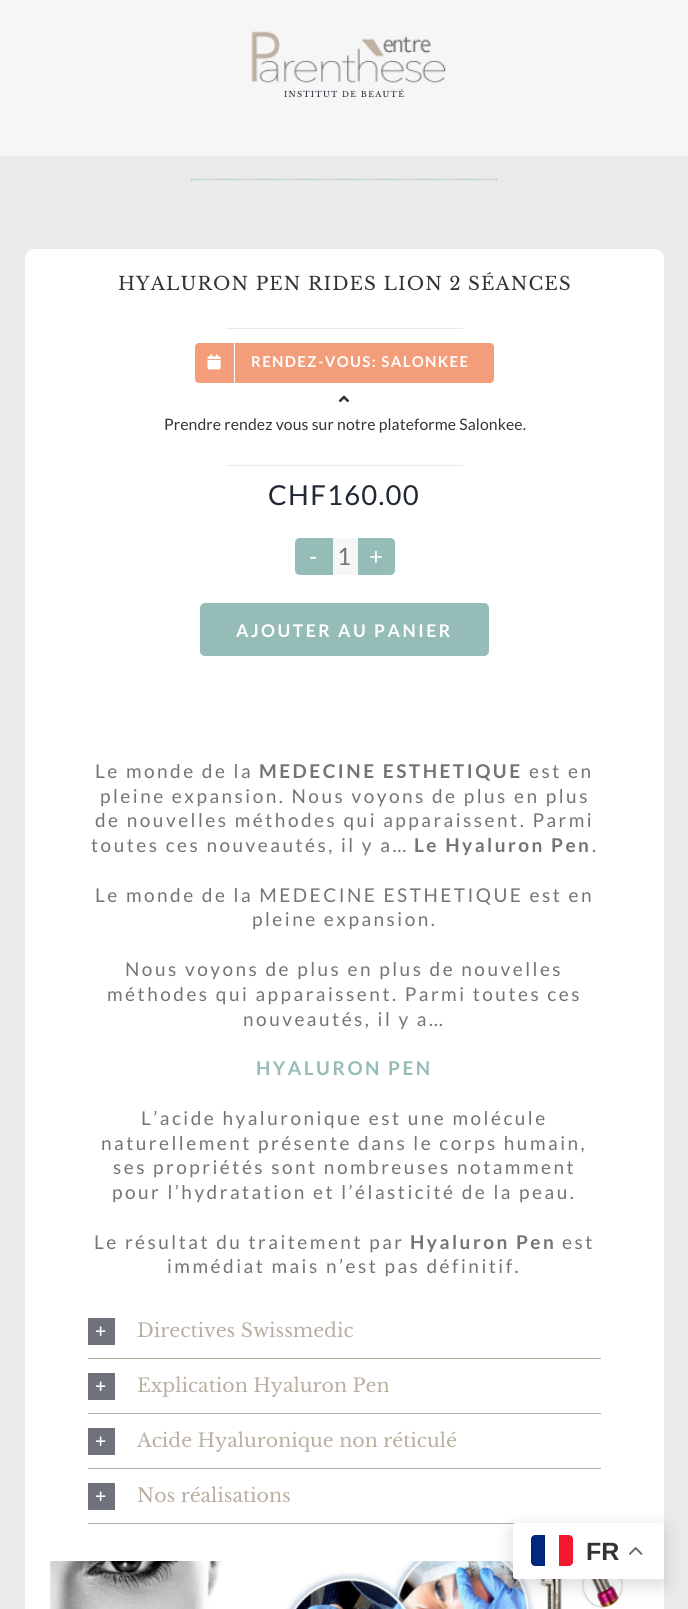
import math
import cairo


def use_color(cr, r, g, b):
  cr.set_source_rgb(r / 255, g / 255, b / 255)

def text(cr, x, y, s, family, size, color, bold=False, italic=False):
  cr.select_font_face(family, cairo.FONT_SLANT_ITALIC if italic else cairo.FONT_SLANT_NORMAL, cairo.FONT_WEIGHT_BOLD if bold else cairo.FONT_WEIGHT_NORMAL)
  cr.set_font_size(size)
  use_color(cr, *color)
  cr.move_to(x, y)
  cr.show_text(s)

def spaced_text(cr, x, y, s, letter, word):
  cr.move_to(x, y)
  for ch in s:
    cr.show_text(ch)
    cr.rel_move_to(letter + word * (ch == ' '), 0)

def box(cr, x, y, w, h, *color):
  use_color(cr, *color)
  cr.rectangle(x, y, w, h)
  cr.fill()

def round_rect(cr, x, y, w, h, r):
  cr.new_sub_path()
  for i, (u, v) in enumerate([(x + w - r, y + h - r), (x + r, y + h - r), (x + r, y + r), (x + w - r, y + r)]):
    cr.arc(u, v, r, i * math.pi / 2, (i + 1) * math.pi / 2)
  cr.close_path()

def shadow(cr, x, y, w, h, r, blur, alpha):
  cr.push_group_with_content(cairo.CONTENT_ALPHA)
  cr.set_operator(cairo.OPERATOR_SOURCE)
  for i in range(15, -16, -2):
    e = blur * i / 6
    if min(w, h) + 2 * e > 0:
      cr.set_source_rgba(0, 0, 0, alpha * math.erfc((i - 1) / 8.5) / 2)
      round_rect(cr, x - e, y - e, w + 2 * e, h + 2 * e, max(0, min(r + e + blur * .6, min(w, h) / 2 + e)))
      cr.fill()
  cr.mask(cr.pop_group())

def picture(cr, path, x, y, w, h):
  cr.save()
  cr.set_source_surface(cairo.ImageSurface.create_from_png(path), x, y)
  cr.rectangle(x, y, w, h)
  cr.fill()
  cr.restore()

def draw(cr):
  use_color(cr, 235, 234, 234)
  cr.paint()
  box(cr, 0, 0, 688, 156, 246, 246, 246)
  picture(cr, "img_01.png", 251, 31, 195, 52)
  cr.new_path()
  cr.move_to(191, 179.5)
  cr.line_to(497.5, 179.5)
  use_color(cr, 149, 188, 182)
  cr.set_line_width(1.2)
  cr.set_dash([1.25, 1.25])
  cr.stroke()
  use_color(cr, 255, 255, 255)
  round_rect(cr, 25, 249, 639, 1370, 10)
  cr.fill()
  box(cr, 226, 328, 237, 1, 235, 234, 234)
  use_color(cr, 244, 157, 122)
  round_rect(cr, 195, 343, 299, 40, 4)
  cr.fill()
  box(cr, 234, 343, 1, 40, 255, 255, 255)
  picture(cr, "img_02.png", 207, 354, 14, 16)
  picture(cr, "img_03.png", 338, 395, 11, 8)
  box(cr, 226, 465, 237, 1, 235, 234, 234)
  use_color(cr, 149, 188, 182)
  cr.new_path()
  cr.move_to(300, 538)
  cr.line_to(333, 538)
  cr.line_to(333, 575)
  cr.line_to(300, 575)
  cr.curve_to(297, 575, 295, 573, 295, 570)
  cr.line_to(295, 543)
  cr.curve_to(295, 540, 297, 538, 300, 538)
  cr.close_path()
  cr.fill()
  box(cr, 333, 538, 25, 37, 246, 246, 246)
  use_color(cr, 149, 188, 182)
  cr.new_path()
  cr.move_to(358, 538)
  cr.line_to(390, 538)
  cr.curve_to(393, 538, 395, 540, 395, 543)
  cr.line_to(395, 570)
  cr.curve_to(395, 573, 393, 575, 390, 575)
  cr.line_to(358, 575)
  cr.close_path()
  cr.fill()
  round_rect(cr, 200, 603, 289, 53, 5)
  cr.fill()
  box(cr, 88, 1358, 513, 1, 185, 175, 161)
  box(cr, 88, 1318, 27, 27, 111, 114, 123)
  picture(cr, "img_04.png", 95, 1326, 11, 10)
  box(cr, 88, 1413, 513, 1, 185, 175, 161)
  box(cr, 88, 1373, 27, 27, 111, 114, 123)
  picture(cr, "img_04.png", 95, 1381, 11, 10)
  box(cr, 88, 1468, 513, 1, 185, 175, 161)
  box(cr, 88, 1428, 27, 27, 111, 114, 123)
  picture(cr, "img_04.png", 95, 1436, 11, 10)
  box(cr, 88, 1523, 428, 1, 185, 175, 161)
  box(cr, 88, 1483, 27, 27, 111, 114, 123)
  picture(cr, "img_04.png", 95, 1491, 11, 10)
  picture(cr, "img_05.png", 50, 1561, 573, 48)
  use_color(cr, 0, 0, 0)
  shadow(cr, 513, 1529, 151, 56, 2.5, 9.5, 0.15)
  use_color(cr, 255, 255, 255)
  round_rect(cr, 513, 1523, 151, 56, 2.5)
  cr.fill()
  use_color(cr, 0, 38, 127)
  cr.new_path()
  cr.move_to(535, 1535)
  cr.line_to(545, 1535)
  cr.line_to(545, 1566)
  cr.line_to(535, 1566)
  cr.curve_to(533, 1566, 531, 1564, 531, 1562)
  cr.line_to(531, 1539)
  cr.curve_to(531, 1537, 533, 1535, 535, 1535)
  cr.close_path()
  cr.fill()
  use_color(cr, 243, 24, 48)
  cr.new_path()
  cr.move_to(559, 1535)
  cr.line_to(569, 1535)
  cr.curve_to(571, 1535, 573, 1537, 573, 1539)
  cr.line_to(573, 1562)
  cr.curve_to(573, 1564, 571, 1566, 569, 1566)
  cr.line_to(559, 1566)
  cr.close_path()
  cr.fill()
  picture(cr, "img_06.png", 629, 1547, 14, 8)
  cr.select_font_face("Libre Baskerville")
  cr.set_font_size(7.9)
  use_color(cr, 33, 41, 52)
  spaced_text(cr, 284, 97, "INSTITUT DE BEAUTÉ", 1.25, 0)
  cr.set_font_size(18.4)
  use_color(cr, 51, 51, 51)
  spaced_text(cr, 118, 290, "HYALURON PEN RIDES LION 2 SÉANCES", 1.1, 0)
  cr.select_font_face("Lato", cairo.FONT_SLANT_NORMAL, cairo.FONT_WEIGHT_BOLD)
  cr.set_font_size(15)
  use_color(cr, 255, 255, 255)
  spaced_text(cr, 251, 367, "RENDEZ-VOUS: SALONKEE", 1.35, 0)
  cr.select_font_face("Lato")
  cr.set_font_size(15.75)
  use_color(cr, 51, 51, 51)
  spaced_text(cr, 164, 430, "Prendre rendez vous sur notre plateforme Salonkee.", 0.1, 0)
  cr.set_font_size(27.5)
  use_color(cr, 33, 41, 52)
  spaced_text(cr, 268, 505, "CHF160.00", 1.25, 0)
  text(cr, 309, 565, "-", "Lato", 24, (255, 255, 255))
  text(cr, 337, 565, "1", "Lato", 24, (116, 116, 116))
  text(cr, 369, 565, "+", "Lato", 24, (255, 255, 255))
  cr.select_font_face("Lato", cairo.FONT_SLANT_NORMAL, cairo.FONT_WEIGHT_BOLD)
  cr.set_font_size(17.5)
  spaced_text(cr, 236, 637, "AJOUTER AU PANIER", 2.5, 0)
  cr.select_font_face("Lato")
  cr.set_font_size(19)
  use_color(cr, 116, 116, 116)
  spaced_text(cr, 95, 778, "Le monde de la", 2.5, 0)
  cr.select_font_face("Lato", cairo.FONT_SLANT_NORMAL, cairo.FONT_WEIGHT_BOLD)
  spaced_text(cr, 259, 778, "MEDECINE ESTHETIQUE", 2.5, 0)
  cr.select_font_face("Lato")
  spaced_text(cr, 529, 778, "est en", 2.5, 0)
  spaced_text(cr, 100, 803, "pleine expansion. Nous voyons de plus en plus", 2.5, 0)
  spaced_text(cr, 95, 827, "de nouvelles méthodes qui apparaissent. Parmi", 2.5, 0)
  spaced_text(cr, 91, 852, "toutes ces nouveautés, il y a…", 2.5, 0)
  cr.select_font_face("Lato", cairo.FONT_SLANT_NORMAL, cairo.FONT_WEIGHT_BOLD)
  spaced_text(cr, 414, 852, "Le Hyaluron Pen", 2.5, 0)
  cr.select_font_face("Lato")
  spaced_text(cr, 592, 852, ".", 2.5, 0)
  spaced_text(cr, 95, 902, "Le monde de la MEDECINE ESTHETIQUE est en", 2.5, 0)
  spaced_text(cr, 252, 926, "pleine expansion.", 2.5, 0)
  spaced_text(cr, 125, 976, "Nous voyons de plus en plus de nouvelles", 2.5, 0)
  spaced_text(cr, 107, 1001, "méthodes qui apparaissent. Parmi toutes ces", 2.5, 0)
  spaced_text(cr, 243, 1026, "nouveautés, il y a…", 2.5, 0)
  cr.select_font_face("Lato", cairo.FONT_SLANT_NORMAL, cairo.FONT_WEIGHT_BOLD)
  use_color(cr, 149, 188, 182)
  spaced_text(cr, 256, 1075, "HYALURON PEN", 2.5, 0)
  cr.select_font_face("Lato")
  use_color(cr, 116, 116, 116)
  spaced_text(cr, 141, 1125, "L’acide hyaluronique est une molécule", 2.5, 0)
  spaced_text(cr, 101, 1150, "naturellement présente dans le corps humain,", 2.5, 0)
  spaced_text(cr, 113, 1174, "ses propriétés sont nombreuses notamment", 2.5, 0)
  spaced_text(cr, 112, 1199, "pour l’hydratation et l’élasticité de la peau.", 2.5, 0)
  spaced_text(cr, 94, 1249, "Le résultat du traitement par", 2.5, 0)
  cr.select_font_face("Lato", cairo.FONT_SLANT_NORMAL, cairo.FONT_WEIGHT_BOLD)
  spaced_text(cr, 410, 1249, "Hyaluron Pen", 2.5, 0)
  cr.select_font_face("Lato")
  spaced_text(cr, 562, 1249, "est", 2.5, 0)
  spaced_text(cr, 167, 1273, "immédiat mais n’est pas définitif.", 2.5, 0)
  text(cr, 137, 1337, "Directives Swissmedic", "Libre Baskerville", 19, (185, 175, 161))
  text(cr, 137, 1392, "Explication Hyaluron Pen", "Libre Baskerville", 19, (185, 175, 161))
  text(cr, 137, 1447, "Acide Hyaluronique non réticulé", "Libre Baskerville", 19, (185, 175, 161))
  text(cr, 137, 1502, "Nos réalisations", "Libre Baskerville", 19, (185, 175, 161))
  text(cr, 586, 1560, "FR", "Liberation Sans", 25, (51, 51, 51), bold=True)


surface = cairo.ImageSurface(cairo.FORMAT_RGB24, 688, 1609)
cr = cairo.Context(surface)
options = cairo.FontOptions()
options.set_hint_metrics(cairo.HINT_METRICS_OFF)
options.set_hint_style(cairo.HINT_STYLE_NONE)
cr.set_font_options(options)
cr.set_miter_limit(4)
draw(cr)
surface.write_to_png("out.png")
